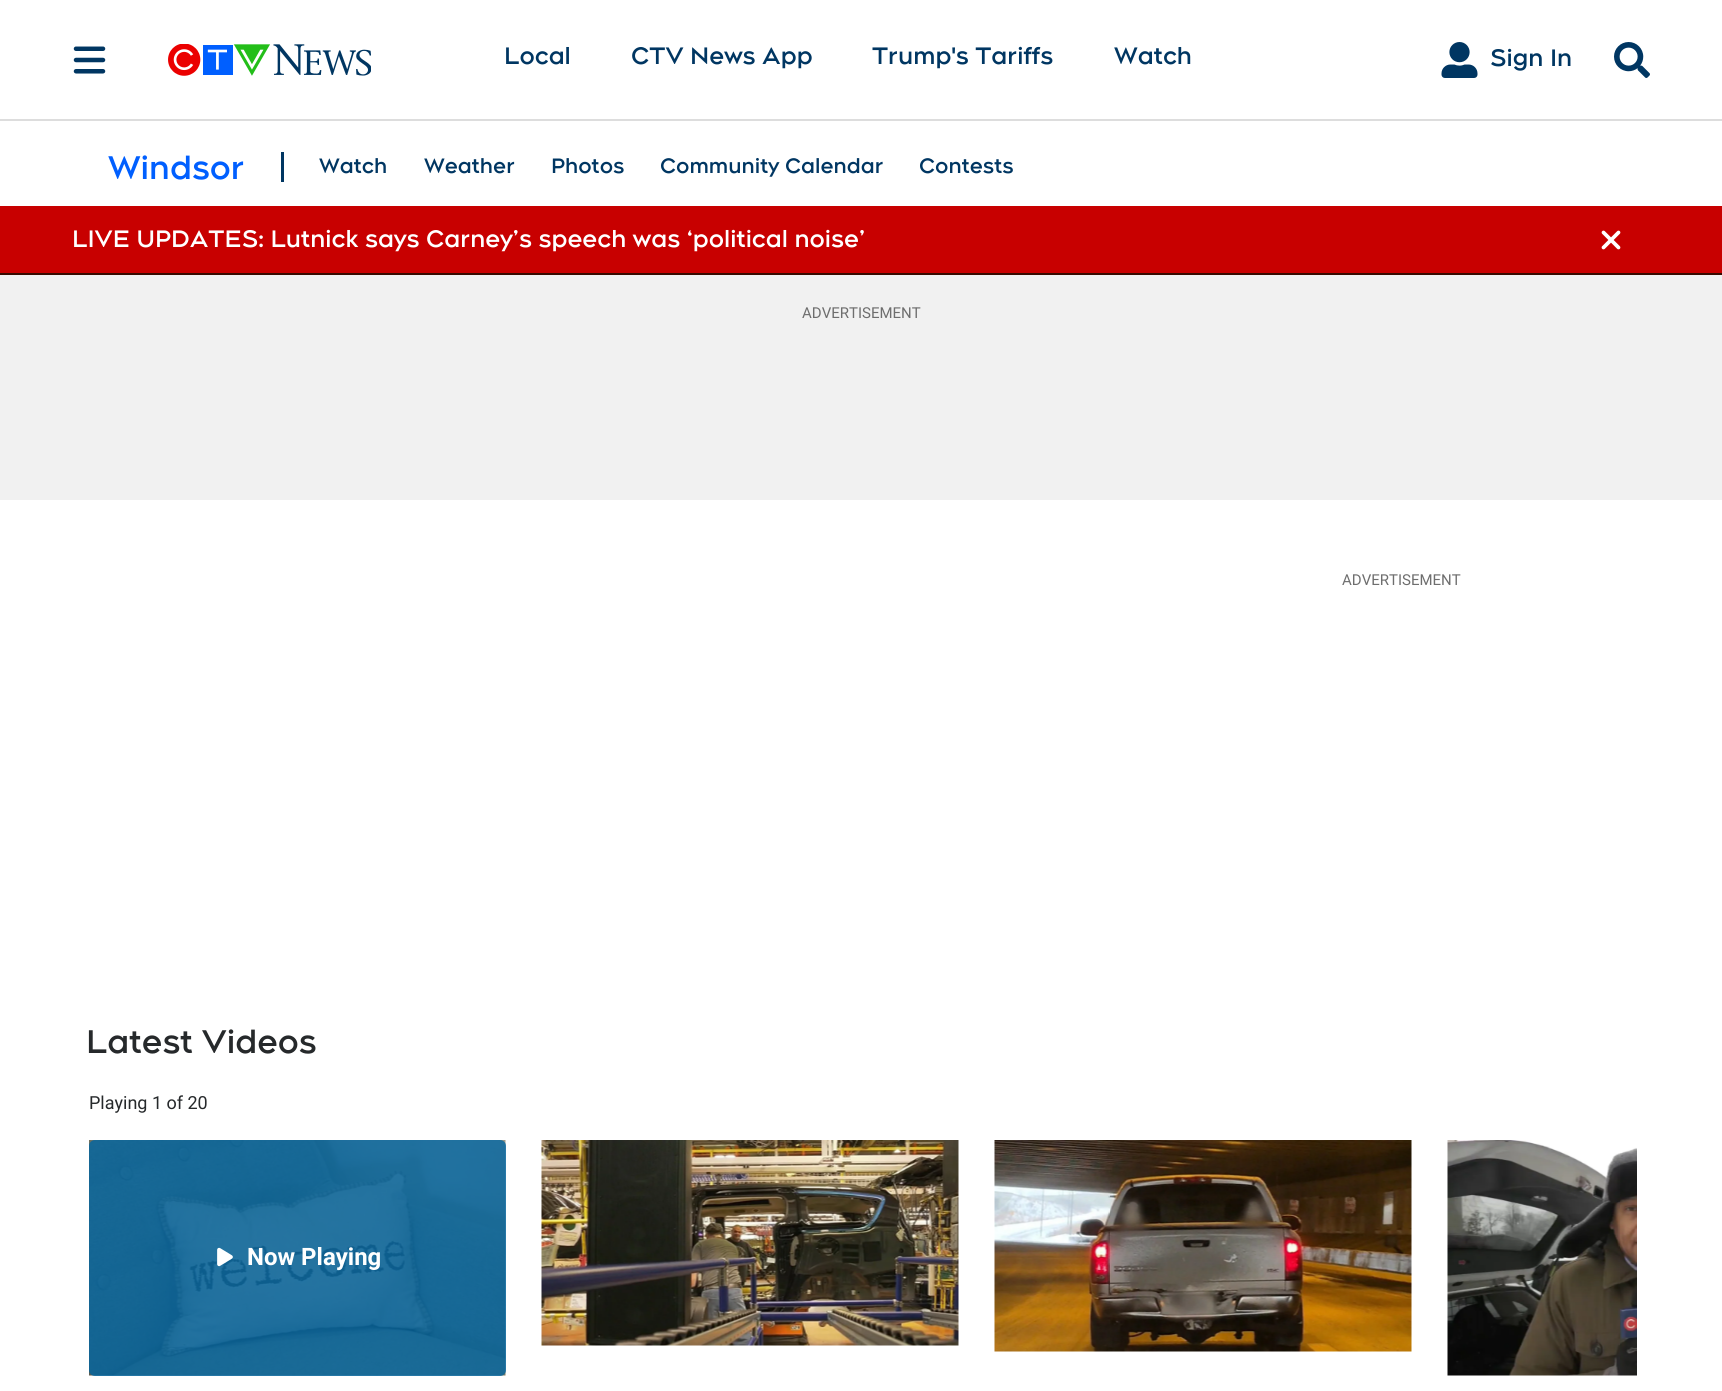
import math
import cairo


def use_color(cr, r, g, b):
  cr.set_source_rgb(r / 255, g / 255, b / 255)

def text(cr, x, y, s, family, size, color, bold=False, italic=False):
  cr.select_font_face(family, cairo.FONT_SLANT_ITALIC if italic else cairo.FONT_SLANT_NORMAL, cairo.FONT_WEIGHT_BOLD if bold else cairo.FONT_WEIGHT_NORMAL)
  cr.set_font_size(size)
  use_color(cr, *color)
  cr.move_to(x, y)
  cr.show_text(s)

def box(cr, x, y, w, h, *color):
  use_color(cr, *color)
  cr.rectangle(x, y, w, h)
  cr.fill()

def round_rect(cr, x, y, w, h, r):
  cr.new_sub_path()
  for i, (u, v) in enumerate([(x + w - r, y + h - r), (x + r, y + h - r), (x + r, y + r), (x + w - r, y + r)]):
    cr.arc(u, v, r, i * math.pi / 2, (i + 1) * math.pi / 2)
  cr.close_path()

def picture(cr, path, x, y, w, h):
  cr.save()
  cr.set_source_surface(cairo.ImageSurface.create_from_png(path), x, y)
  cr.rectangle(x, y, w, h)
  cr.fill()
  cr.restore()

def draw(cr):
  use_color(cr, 255, 255, 255)
  cr.paint()
  box(cr, 0, 119, 1722, 2, 221, 221, 221)
  picture(cr, "img_01.png", 73, 46, 33, 28)
  picture(cr, "img_02.png", 168, 44, 203, 32)
  picture(cr, "img_03.png", 1441, 42, 37, 36)
  picture(cr, "img_04.png", 1614, 42, 36, 36)
  box(cr, 281, 152, 3, 30, 0, 54, 98)
  box(cr, 0, 206, 1722, 67, 200, 0, 0)
  box(cr, 0, 273, 1722, 2, 55, 10, 0)
  picture(cr, "img_05.png", 1601, 230, 20, 20)
  box(cr, 0, 275, 1722, 225, 241, 241, 241)
  picture(cr, "img_06.png", 89, 1140, 417, 236)
  cr.set_source_rgba(0, 0.4, 0.639, 0.8)
  round_rect(cr, 89, 1140, 417, 236, 6)
  cr.fill()
  picture(cr, "img_07.png", 217, 1247, 16, 20)
  picture(cr, "img_08.png", 541, 1140, 418, 206)
  picture(cr, "img_09.png", 994, 1140, 418, 212)
  picture(cr, "img_10.png", 1447, 1140, 190, 236)
  text(cr, 504, 64, "Local", "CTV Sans", 24, (0, 54, 98), bold=True)
  text(cr, 631, 64, "CTV News App", "CTV Sans", 24, (0, 54, 98), bold=True)
  text(cr, 872, 64, "Trump's Tariffs", "CTV Sans", 24, (0, 54, 98), bold=True)
  text(cr, 1114, 64, "Watch", "CTV Sans", 24, (0, 54, 98), bold=True)
  text(cr, 1490, 66, "Sign In", "CTV Sans", 24, (0, 54, 98), bold=True)
  text(cr, 108, 179, "Windsor", "CTV Sans", 33, (0, 95, 255), bold=True)
  text(cr, 319, 173, "Watch", "CTV Sans", 21, (0, 54, 98), bold=True)
  text(cr, 424, 173, "Weather", "CTV Sans", 21, (0, 54, 98), bold=True)
  text(cr, 551, 173, "Photos", "CTV Sans", 21, (0, 54, 98), bold=True)
  text(cr, 660, 173, "Community Calendar", "CTV Sans", 21, (0, 54, 98), bold=True)
  text(cr, 919, 173, "Contests", "CTV Sans", 21, (0, 54, 98), bold=True)
  text(cr, 72, 247, "LIVE UPDATES: Lutnick says Carney’s speech was ‘political noise’", "CTV Sans", 24, (255, 255, 255), bold=True)
  text(cr, 802, 318, "ADVERTISEMENT", "Roboto", 15, (110, 110, 110))
  text(cr, 1342, 585, "ADVERTISEMENT", "Roboto", 15, (110, 110, 110))
  text(cr, 86, 1053, "Latest Videos", "CTV Sans", 33, (38, 41, 43), bold=True)
  text(cr, 89, 1109, "Playing 1 of 20", "Roboto", 18, (38, 41, 43))
  text(cr, 247, 1265, "Now Playing", "Roboto", 24, (255, 255, 255), bold=True)


surface = cairo.ImageSurface(cairo.FORMAT_RGB24, 1722, 1391)
cr = cairo.Context(surface)
options = cairo.FontOptions()
options.set_hint_metrics(cairo.HINT_METRICS_OFF)
options.set_hint_style(cairo.HINT_STYLE_NONE)
cr.set_font_options(options)
cr.set_miter_limit(4)
draw(cr)
surface.write_to_png("out.png")
